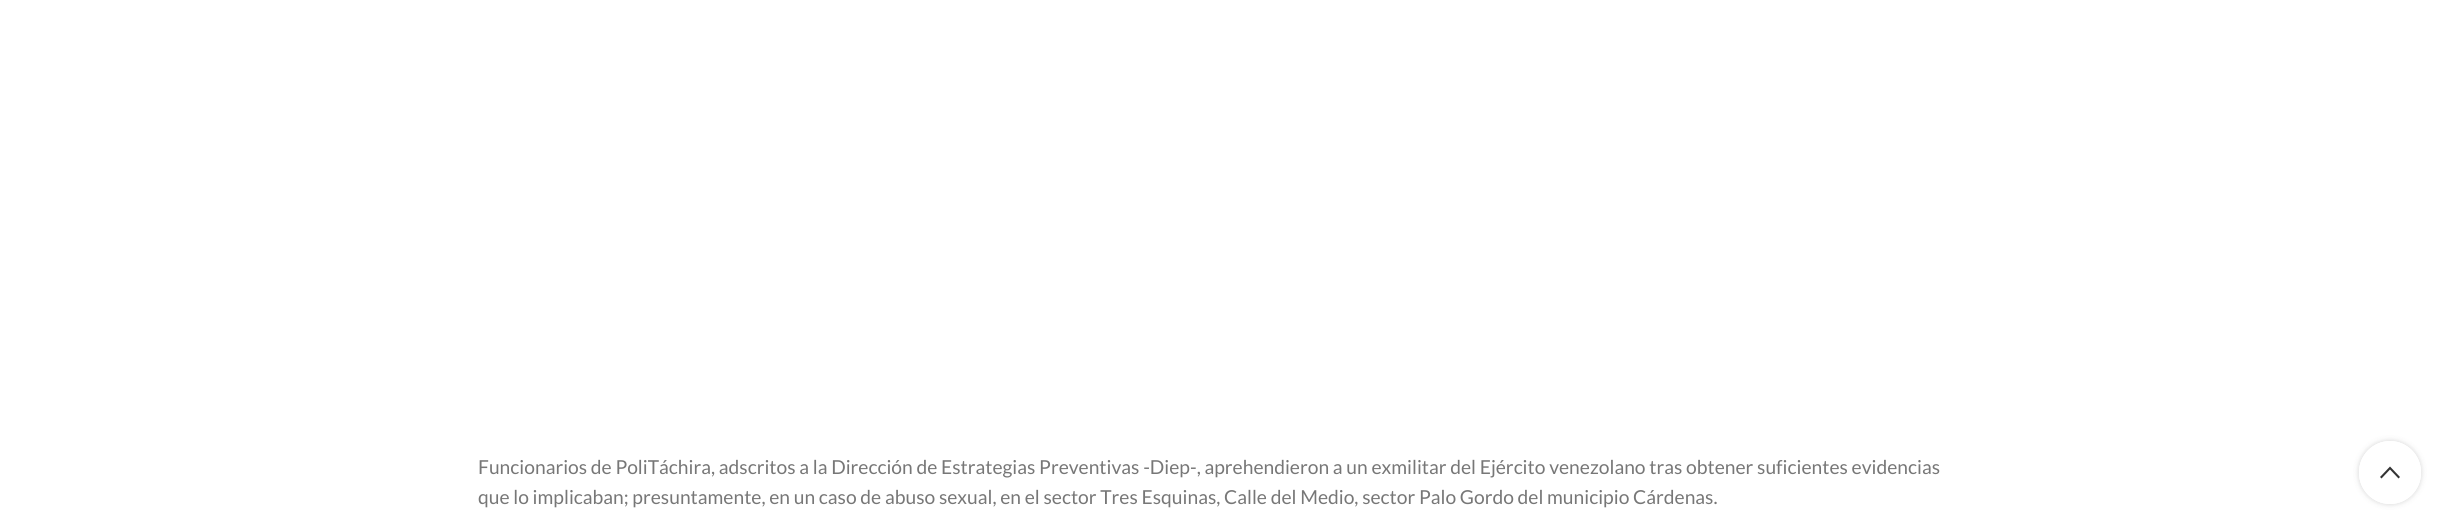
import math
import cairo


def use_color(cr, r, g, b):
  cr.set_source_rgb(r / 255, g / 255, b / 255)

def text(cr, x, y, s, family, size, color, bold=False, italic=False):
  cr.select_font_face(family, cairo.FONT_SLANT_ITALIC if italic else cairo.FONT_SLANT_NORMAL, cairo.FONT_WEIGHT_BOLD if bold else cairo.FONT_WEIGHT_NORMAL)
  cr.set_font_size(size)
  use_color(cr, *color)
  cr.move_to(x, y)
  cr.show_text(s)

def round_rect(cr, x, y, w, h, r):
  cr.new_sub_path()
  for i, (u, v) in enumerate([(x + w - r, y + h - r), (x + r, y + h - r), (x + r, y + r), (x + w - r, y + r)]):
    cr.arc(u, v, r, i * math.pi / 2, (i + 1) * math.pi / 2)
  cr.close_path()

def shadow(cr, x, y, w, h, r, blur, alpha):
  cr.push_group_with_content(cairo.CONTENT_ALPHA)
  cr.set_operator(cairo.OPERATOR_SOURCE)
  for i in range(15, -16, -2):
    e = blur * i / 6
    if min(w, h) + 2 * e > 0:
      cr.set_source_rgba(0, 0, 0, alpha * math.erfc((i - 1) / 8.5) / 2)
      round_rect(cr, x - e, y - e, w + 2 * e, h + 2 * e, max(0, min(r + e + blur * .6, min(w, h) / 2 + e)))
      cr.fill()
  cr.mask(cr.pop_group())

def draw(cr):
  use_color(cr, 255, 255, 255)
  cr.paint()
  cr.save()
  cr.set_fill_rule(cairo.FILL_RULE_EVEN_ODD)
  cr.new_path()
  cr.move_to(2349, 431)
  cr.line_to(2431, 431)
  cr.line_to(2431, 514)
  cr.line_to(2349, 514)
  cr.close_path()
  cr.move_to(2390, 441)
  cr.curve_to(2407, 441, 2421, 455, 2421, 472)
  cr.line_to(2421, 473)
  cr.curve_to(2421, 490, 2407, 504, 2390, 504)
  cr.curve_to(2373, 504, 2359, 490, 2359, 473)
  cr.line_to(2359, 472)
  cr.curve_to(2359, 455, 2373, 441, 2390, 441)
  cr.close_path()
  cr.clip()
  use_color(cr, 0, 0, 0)
  shadow(cr, 2359, 441, 62, 63, 31, 3, 0.17)
  cr.restore()
  cr.set_source_rgba(1, 1, 1, 0.9)
  round_rect(cr, 2359, 441, 62, 63, 31)
  cr.fill()
  use_color(cr, 51, 51, 51)
  cr.new_path()
  cr.move_to(2390, 466.5)
  cr.line_to(2400, 477)
  cr.line_to(2398.5, 478.5)
  cr.line_to(2390, 469.5)
  cr.line_to(2381.5, 478.5)
  cr.line_to(2380, 477)
  cr.close_path()
  cr.fill()
  text(cr, 478, 474, "Funcionarios de PoliTáchira, adscritos a la Dirección de Estrategias Preventivas -Diep-, aprehendieron a un exmilitar del Ejército venezolano tras obtener suficientes evidencias", "Lato", 19.25, (119, 119, 119))
  text(cr, 478, 504, "que lo implicaban; presuntamente, en un caso de abuso sexual, en el sector Tres Esquinas, Calle del Medio, sector Palo Gordo del municipio Cárdenas.", "Lato", 19.25, (119, 119, 119))


surface = cairo.ImageSurface(cairo.FORMAT_RGB24, 2446, 528)
cr = cairo.Context(surface)
options = cairo.FontOptions()
options.set_hint_metrics(cairo.HINT_METRICS_OFF)
options.set_hint_style(cairo.HINT_STYLE_NONE)
cr.set_font_options(options)
cr.set_miter_limit(4)
draw(cr)
surface.write_to_png("out.png")
